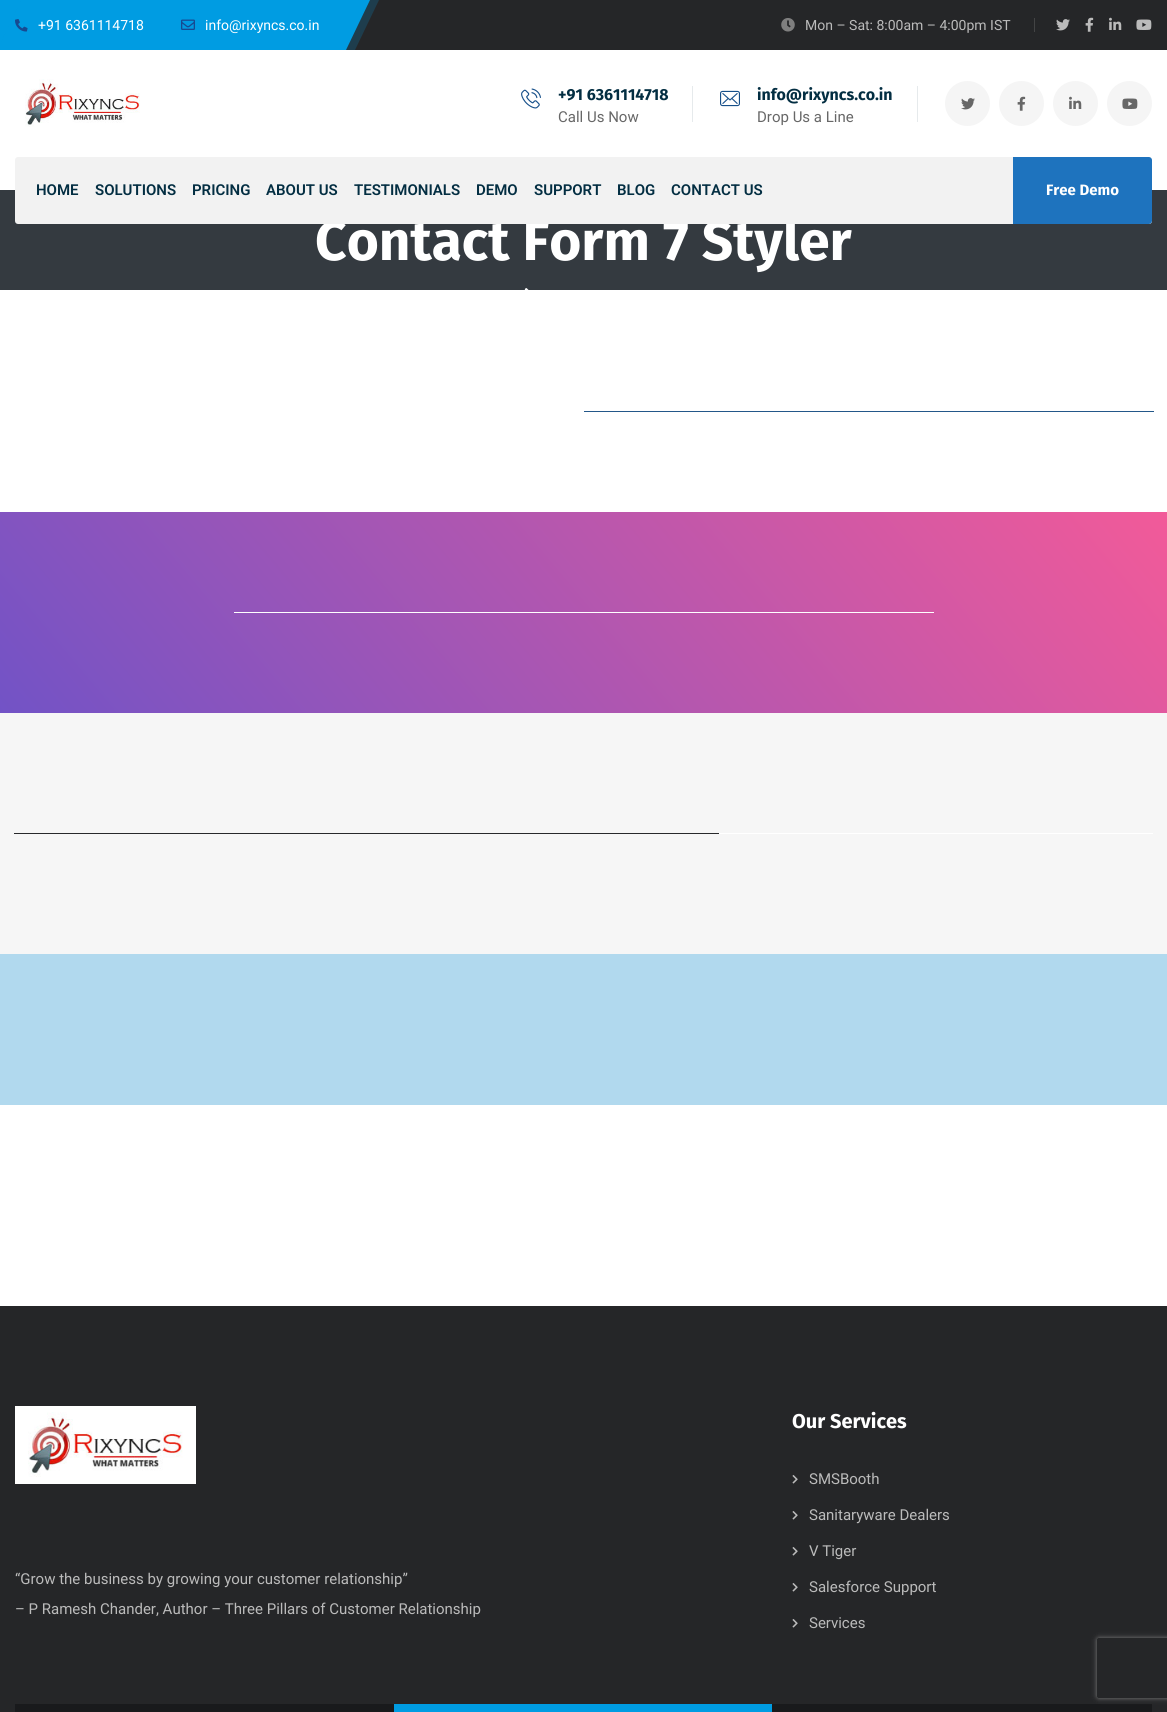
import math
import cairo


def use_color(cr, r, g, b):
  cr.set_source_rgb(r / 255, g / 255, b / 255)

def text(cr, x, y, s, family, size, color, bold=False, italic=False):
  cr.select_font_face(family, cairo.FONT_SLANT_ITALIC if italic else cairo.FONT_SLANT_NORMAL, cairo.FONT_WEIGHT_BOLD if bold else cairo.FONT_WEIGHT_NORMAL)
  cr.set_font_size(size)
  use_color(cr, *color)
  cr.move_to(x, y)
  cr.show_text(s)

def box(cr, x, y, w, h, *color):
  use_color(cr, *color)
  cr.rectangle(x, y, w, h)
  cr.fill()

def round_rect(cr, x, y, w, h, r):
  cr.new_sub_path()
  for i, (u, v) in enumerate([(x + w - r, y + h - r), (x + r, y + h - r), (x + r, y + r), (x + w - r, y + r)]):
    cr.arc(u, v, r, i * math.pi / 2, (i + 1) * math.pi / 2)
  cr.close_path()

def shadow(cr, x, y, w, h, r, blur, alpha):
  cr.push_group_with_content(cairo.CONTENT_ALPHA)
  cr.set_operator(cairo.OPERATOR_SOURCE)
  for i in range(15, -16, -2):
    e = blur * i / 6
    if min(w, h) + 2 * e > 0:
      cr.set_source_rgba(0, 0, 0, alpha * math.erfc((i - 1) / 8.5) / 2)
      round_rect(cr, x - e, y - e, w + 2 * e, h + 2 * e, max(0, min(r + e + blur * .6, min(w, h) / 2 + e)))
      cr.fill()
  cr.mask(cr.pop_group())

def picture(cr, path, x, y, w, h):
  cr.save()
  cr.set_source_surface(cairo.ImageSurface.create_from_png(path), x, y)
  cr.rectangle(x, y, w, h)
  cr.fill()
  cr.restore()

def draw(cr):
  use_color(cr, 255, 255, 255)
  cr.paint()
  box(cr, 346, 0, 821, 50, 37, 38, 40)
  box(cr, 0, 0, 12, 25, 0, 156, 226)
  cr.new_path()
  cr.move_to(12, 0)
  cr.line_to(370, 0)
  cr.line_to(346, 50)
  cr.line_to(-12, 50)
  cr.close_path()
  cr.fill()
  cr.set_source_rgba(0, 0.612, 0.886, 0.2)
  cr.new_path()
  cr.move_to(21, 0)
  cr.line_to(379, 0)
  cr.line_to(355, 50)
  cr.line_to(-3, 50)
  cr.close_path()
  cr.fill()
  picture(cr, "img_01.png", 15, 19, 13, 13)
  picture(cr, "img_02.png", 181, 19, 14, 11)
  picture(cr, "img_03.png", 781, 18, 14, 14)
  box(cr, 1034, 18, 1, 14, 67, 68, 69)
  picture(cr, "img_04.png", 1056, 19, 14, 12)
  picture(cr, "img_05.png", 1085, 17, 9, 15)
  picture(cr, "img_06.png", 1109, 17, 13, 13)
  picture(cr, "img_07.png", 1136, 19, 16, 11)
  picture(cr, "img_08.png", 25, 79, 115, 48)
  picture(cr, "img_09.png", 521, 88, 20, 21)
  box(cr, 692, 86, 1, 36, 230, 234, 236)
  picture(cr, "img_10.png", 720, 90, 20, 17)
  box(cr, 917, 86, 1, 36, 230, 234, 236)
  use_color(cr, 245, 245, 245)
  cr.arc(967.5, 103.5, 22.5, 0, 2 * math.pi)
  cr.fill()
  picture(cr, "img_11.png", 961, 98, 14, 12)
  cr.arc(1021.5, 103.5, 22.5, 0, 2 * math.pi)
  cr.fill()
  picture(cr, "img_12.png", 1017, 96, 9, 15)
  cr.arc(1075.5, 103.5, 22.5, 0, 2 * math.pi)
  cr.fill()
  picture(cr, "img_13.png", 1069, 96, 13, 13)
  cr.arc(1129.5, 103.5, 22.5, 0, 2 * math.pi)
  cr.fill()
  picture(cr, "img_14.png", 1122, 98, 16, 11)
  box(cr, 0, 190, 1167, 100, 52, 58, 64)
  picture(cr, "img_15.png", 524, 288, 5, 2)
  box(cr, 584, 411, 570, 1, 35, 87, 137)
  gradient = cairo.LinearGradient(192, 941, 975, 284)
  gradient.add_color_stop_rgba(0, 0.447, 0.325, 0.776, 1)
  gradient.add_color_stop_rgba(1, 0.949, 0.353, 0.6, 1)
  cr.set_source(gradient)
  cr.rectangle(0, 512, 1167, 201)
  cr.fill()
  box(cr, 234, 612, 700, 1, 255, 255, 255)
  box(cr, 0, 713, 1167, 241, 246, 246, 246)
  box(cr, 14, 833, 705, 1, 40, 41, 43)
  box(cr, 719, 833, 434, 1, 255, 255, 255)
  box(cr, 0, 954, 1167, 151, 177, 217, 238)
  box(cr, 0, 1306, 1167, 406, 37, 38, 40)
  picture(cr, "img_16.png", 15, 1406, 181, 78)
  picture(cr, "img_17.png", 792, 1475, 6, 9)
  picture(cr, "img_17.png", 792, 1511, 6, 9)
  picture(cr, "img_17.png", 792, 1547, 6, 9)
  picture(cr, "img_17.png", 792, 1583, 6, 9)
  picture(cr, "img_17.png", 792, 1619, 6, 9)
  box(cr, 15, 1704, 1137, 8, 25, 26, 28)
  box(cr, 394, 1704, 378, 8, 0, 156, 226)
  cr.save()
  cr.set_fill_rule(cairo.FILL_RULE_EVEN_ODD)
  cr.new_path()
  cr.move_to(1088, 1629)
  cr.line_to(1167, 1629)
  cr.line_to(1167, 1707)
  cr.line_to(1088, 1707)
  cr.close_path()
  cr.move_to(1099, 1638)
  cr.line_to(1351, 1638)
  cr.curve_to(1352, 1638, 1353, 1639, 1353, 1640)
  cr.line_to(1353, 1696)
  cr.curve_to(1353, 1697, 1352, 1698, 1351, 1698)
  cr.line_to(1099, 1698)
  cr.curve_to(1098, 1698, 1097, 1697, 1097, 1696)
  cr.line_to(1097, 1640)
  cr.curve_to(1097, 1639, 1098, 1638, 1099, 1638)
  cr.close_path()
  cr.clip()
  use_color(cr, 128, 128, 128)
  shadow(cr, 1097, 1638, 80, 60, 2, 2.5, 1)
  cr.restore()
  text(cr, 38, 30, "+91 6361114718", "Roboto", 14, (255, 255, 255))
  text(cr, 205, 30, "info@rixyncs.co.in", "Roboto", 14, (255, 255, 255))
  text(cr, 805, 30, "Mon – Sat: 8:00am – 4:00pm IST", "Roboto", 14, (187, 187, 187))
  text(cr, 558, 100, "+91 6361114718", "Fira Sans", 16, (3, 46, 66), bold=True)
  text(cr, 558, 122, "Call Us Now", "Roboto", 15, (103, 103, 103))
  text(cr, 757, 100, "info@rixyncs.co.in", "Fira Sans", 16, (3, 46, 66), bold=True)
  text(cr, 757, 122, "Drop Us a Line", "Roboto", 15, (103, 103, 103))
  text(cr, 315, 260, "Contact Form 7 Styler", "Fira Sans", 55, (255, 255, 255), bold=True)
  use_color(cr, 242, 242, 242)
  round_rect(cr, 15, 157, 1137, 67, 3)
  cr.fill()
  use_color(cr, 30, 115, 190)
  cr.new_path()
  cr.move_to(1013, 157)
  cr.line_to(1149, 157)
  cr.curve_to(1150.5, 157, 1152, 158.5, 1152, 160)
  cr.line_to(1152, 221)
  cr.curve_to(1152, 222.5, 1150.5, 224, 1149, 224)
  cr.line_to(1013, 224)
  cr.close_path()
  cr.fill()
  text(cr, 1046, 195, "Free Demo", "Fira Sans", 15, (255, 255, 255), bold=True)
  text(cr, 671, 195, "CONTACT US", "Roboto SemiBold", 15, (3, 46, 66))
  text(cr, 617, 195, "BLOG", "Roboto SemiBold", 15, (3, 46, 66))
  text(cr, 534, 195, "SUPPORT", "Roboto SemiBold", 15, (3, 46, 66))
  text(cr, 476, 195, "DEMO", "Roboto SemiBold", 15, (3, 46, 66))
  text(cr, 354, 195, "TESTIMONIALS", "Roboto SemiBold", 15, (3, 46, 66))
  text(cr, 266, 195, "ABOUT US", "Roboto SemiBold", 15, (3, 46, 66))
  text(cr, 192, 195, "PRICING", "Roboto SemiBold", 15, (3, 46, 66))
  text(cr, 95, 195, "SOLUTIONS", "Roboto SemiBold", 15, (3, 46, 66))
  text(cr, 36, 195, "HOME", "Roboto SemiBold", 15, (3, 46, 66))
  text(cr, 15, 1584, "“Grow the business by growing your customer relationship”", "Roboto", 15, (187, 187, 187))
  text(cr, 15, 1614, "– P Ramesh Chander, Author – Three Pillars of Customer Relationship", "Roboto", 15, (187, 187, 187))
  text(cr, 792, 1428, "Our Services", "Fira Sans", 20, (255, 255, 255), bold=True)
  text(cr, 809, 1484, "SMSBooth", "Roboto", 15, (187, 187, 187))
  text(cr, 809, 1520, "Sanitaryware Dealers", "Roboto", 15, (187, 187, 187))
  text(cr, 809, 1556, "V Tiger", "Roboto", 15, (187, 187, 187))
  text(cr, 809, 1592, "Salesforce Support", "Roboto", 15, (187, 187, 187))
  text(cr, 809, 1628, "Services", "Roboto", 15, (187, 187, 187))


surface = cairo.ImageSurface(cairo.FORMAT_RGB24, 1167, 1712)
cr = cairo.Context(surface)
options = cairo.FontOptions()
options.set_hint_metrics(cairo.HINT_METRICS_OFF)
options.set_hint_style(cairo.HINT_STYLE_NONE)
cr.set_font_options(options)
cr.set_miter_limit(4)
draw(cr)
surface.write_to_png("out.png")
